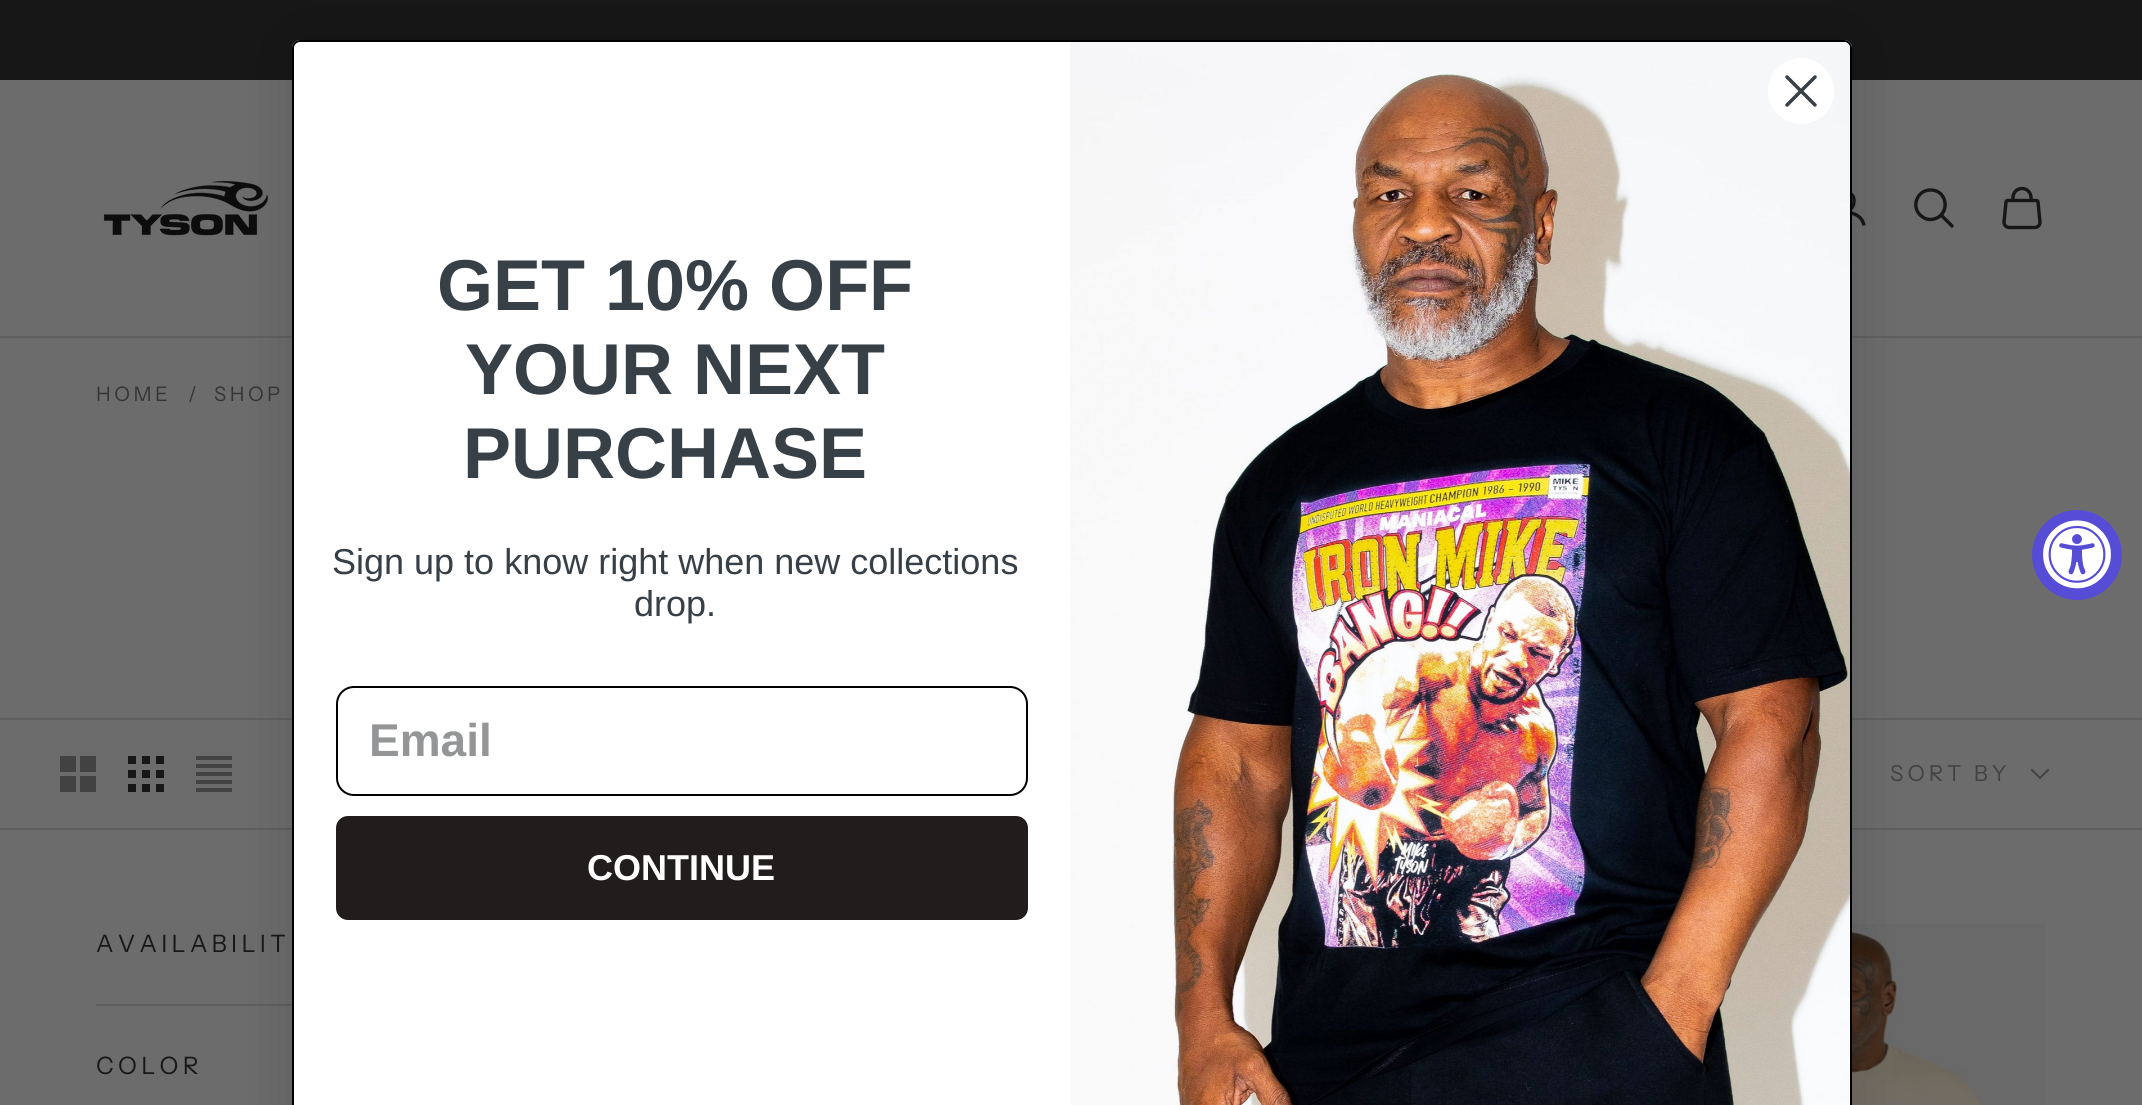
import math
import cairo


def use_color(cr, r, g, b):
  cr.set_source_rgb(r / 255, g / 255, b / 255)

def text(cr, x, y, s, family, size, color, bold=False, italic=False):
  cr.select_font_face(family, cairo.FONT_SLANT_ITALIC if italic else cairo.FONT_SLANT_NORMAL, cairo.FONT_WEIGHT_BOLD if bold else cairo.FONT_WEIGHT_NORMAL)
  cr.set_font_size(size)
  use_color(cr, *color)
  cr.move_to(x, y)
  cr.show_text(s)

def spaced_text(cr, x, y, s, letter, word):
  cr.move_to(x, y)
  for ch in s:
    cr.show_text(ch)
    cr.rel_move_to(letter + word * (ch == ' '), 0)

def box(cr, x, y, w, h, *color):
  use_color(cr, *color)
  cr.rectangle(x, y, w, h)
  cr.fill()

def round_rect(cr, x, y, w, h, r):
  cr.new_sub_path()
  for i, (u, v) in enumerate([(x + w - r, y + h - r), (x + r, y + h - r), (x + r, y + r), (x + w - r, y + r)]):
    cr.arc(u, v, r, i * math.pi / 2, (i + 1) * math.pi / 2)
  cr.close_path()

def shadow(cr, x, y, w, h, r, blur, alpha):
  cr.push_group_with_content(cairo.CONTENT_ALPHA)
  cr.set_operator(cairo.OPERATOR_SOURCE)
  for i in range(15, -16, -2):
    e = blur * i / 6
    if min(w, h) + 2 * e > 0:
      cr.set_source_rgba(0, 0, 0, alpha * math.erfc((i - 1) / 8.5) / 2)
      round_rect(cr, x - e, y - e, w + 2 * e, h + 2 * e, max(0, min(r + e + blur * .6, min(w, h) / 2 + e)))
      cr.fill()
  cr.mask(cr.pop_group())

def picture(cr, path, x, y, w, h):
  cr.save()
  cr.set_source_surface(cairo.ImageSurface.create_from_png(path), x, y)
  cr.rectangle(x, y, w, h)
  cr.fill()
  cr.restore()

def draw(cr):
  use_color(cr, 108, 108, 108)
  cr.paint()
  box(cr, 0, 0, 2142, 80, 23, 23, 23)
  box(cr, 0, 336, 2142, 2, 95, 95, 95)
  picture(cr, "img_01.png", 103, 181, 165, 55)
  cr.new_path()
  cr.move_to(1854, 201.5)
  cr.curve_to(1853.5, 215, 1836.5, 212, 1838, 199.5)
  cr.curve_to(1839, 189, 1855, 190.5, 1854, 201.5)
  cr.close_path()
  use_color(cr, 23, 23, 23)
  cr.set_line_width(3.4)
  cr.set_line_cap(cairo.LINE_CAP_ROUND)
  cr.set_line_join(cairo.LINE_JOIN_ROUND)
  cr.stroke()
  cr.new_path()
  cr.move_to(1828, 225.5)
  cr.curve_to(1831, 208, 1861, 208, 1864, 225.5)
  cr.set_line_cap(cairo.LINE_CAP_BUTT)
  cr.set_line_join(cairo.LINE_JOIN_MITER)
  cr.stroke()
  cr.new_path()
  cr.move_to(1930.5, 190)
  cr.curve_to(1915.5, 190, 1910, 210, 1923.5, 217.5)
  cr.curve_to(1925.5, 219, 1928, 219.5, 1930.5, 219.5)
  cr.curve_to(1950.5, 218.5, 1949.5, 190, 1930.5, 190)
  cr.close_path()
  cr.stroke()
  cr.new_path()
  cr.move_to(1941.5, 215.5)
  cr.line_to(1952, 226)
  cr.set_line_cap(cairo.LINE_CAP_ROUND)
  cr.stroke()
  picture(cr, "img_02.png", 2002, 186, 40, 44)
  box(cr, 0, 718, 2142, 2, 95, 95, 95)
  box(cr, 0, 828, 2142, 2, 95, 95, 95)
  picture(cr, "img_06.png", 196, 756, 36, 36)
  box(cr, 96, 1004, 196, 2, 95, 95, 95)
  picture(cr, "img_07.png", 1852, 924, 194, 181)
  use_color(cr, 0, 0, 0)
  shadow(cr, 292, 40, 1560, 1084, 8, 30, 0.15)
  use_color(cr, 255, 255, 255)
  cr.new_path()
  cr.move_to(300, 40)
  cr.line_to(1844, 40)
  cr.curve_to(1848.5, 40, 1852, 43.5, 1852, 48)
  cr.line_to(1852, 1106)
  cr.line_to(292, 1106)
  cr.line_to(292, 48)
  cr.curve_to(292, 43.5, 295.5, 40, 300, 40)
  cr.close_path()
  cr.fill()
  round_rect(cr, 293, 41, 1558, 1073, 7)
  use_color(cr, 0, 0, 0)
  cr.set_line_width(2)
  cr.set_line_cap(cairo.LINE_CAP_BUTT)
  cr.stroke()
  picture(cr, "img_03.png", 1070, 42, 780, 1063)
  use_color(cr, 255, 255, 255)
  cr.arc(1801, 91, 33, 0, 2 * math.pi)
  cr.fill()
  cr.new_path()
  cr.move_to(1787, 77)
  cr.line_to(1815, 105)
  cr.move_to(1787, 105)
  cr.line_to(1815, 77)
  cr.close_path()
  use_color(cr, 55, 63, 71)
  cr.set_line_width(3.5)
  cr.set_line_cap(cairo.LINE_CAP_ROUND)
  cr.set_line_join(cairo.LINE_JOIN_ROUND)
  cr.stroke()
  round_rect(cr, 337, 687, 690, 108, 17)
  use_color(cr, 0, 0, 0)
  cr.set_line_width(2)
  cr.set_line_cap(cairo.LINE_CAP_BUTT)
  cr.set_line_join(cairo.LINE_JOIN_MITER)
  cr.stroke()
  use_color(cr, 33, 29, 28)
  round_rect(cr, 342, 822, 680, 92, 6)
  cr.fill_preserve()
  cr.set_line_width(12)
  cr.stroke()
  picture(cr, "img_04.png", 60, 756, 36, 36)
  picture(cr, "img_05.png", 128, 756, 36, 36)
  cr.new_path()
  cr.move_to(2032, 770)
  cr.line_to(2040, 778)
  cr.line_to(2048, 770)
  use_color(cr, 66, 66, 66)
  cr.set_line_width(2)
  cr.set_line_cap(cairo.LINE_CAP_SQUARE)
  cr.stroke()
  use_color(cr, 87, 76, 213)
  cr.arc(2077, 555, 45, 0, 2 * math.pi)
  cr.fill()
  picture(cr, "img_08.png", 2043, 520, 68, 69)
  text(cr, 437, 310, "GET 10% OFF", "Liberation Sans", 72, (55, 63, 71), bold=True)
  text(cr, 465, 394, "YOUR NEXT", "Liberation Sans", 72, (55, 63, 71), bold=True)
  text(cr, 463, 478, "PURCHASE", "Liberation Sans", 72, (55, 63, 71), bold=True)
  text(cr, 332, 574, "Sign up to know right when new collections", "Liberation Sans", 36, (55, 63, 71))
  text(cr, 634, 616, "drop.", "Liberation Sans", 36, (55, 63, 71))
  text(cr, 369, 756, "Email", "Liberation Sans", 46, (148, 149, 150), bold=True)
  text(cr, 587, 880, "CONTINUE", "Liberation Sans", 36, (255, 255, 255), bold=True)
  cr.select_font_face("Instrument Sans")
  cr.set_font_size(20)
  use_color(cr, 53, 53, 53)
  spaced_text(cr, 96, 401, "HOME", 3.5, 0)
  text(cr, 188, 401, "/", "Instrument Sans", 20, (53, 53, 53))
  spaced_text(cr, 214, 401, "SHOP", 3.5, 0)
  cr.set_font_size(22)
  use_color(cr, 66, 66, 66)
  spaced_text(cr, 1890, 781, "SORT BY", 4, 0)
  cr.set_font_size(24)
  use_color(cr, 23, 23, 23)
  spaced_text(cr, 96, 952, "AVAILABILIT", 4.25, 0)
  spaced_text(cr, 96, 1074, "COLOR", 4.25, 0)


surface = cairo.ImageSurface(cairo.FORMAT_RGB24, 2142, 1105)
cr = cairo.Context(surface)
options = cairo.FontOptions()
options.set_hint_metrics(cairo.HINT_METRICS_OFF)
options.set_hint_style(cairo.HINT_STYLE_NONE)
cr.set_font_options(options)
cr.set_miter_limit(4)
draw(cr)
surface.write_to_png("out.png")
